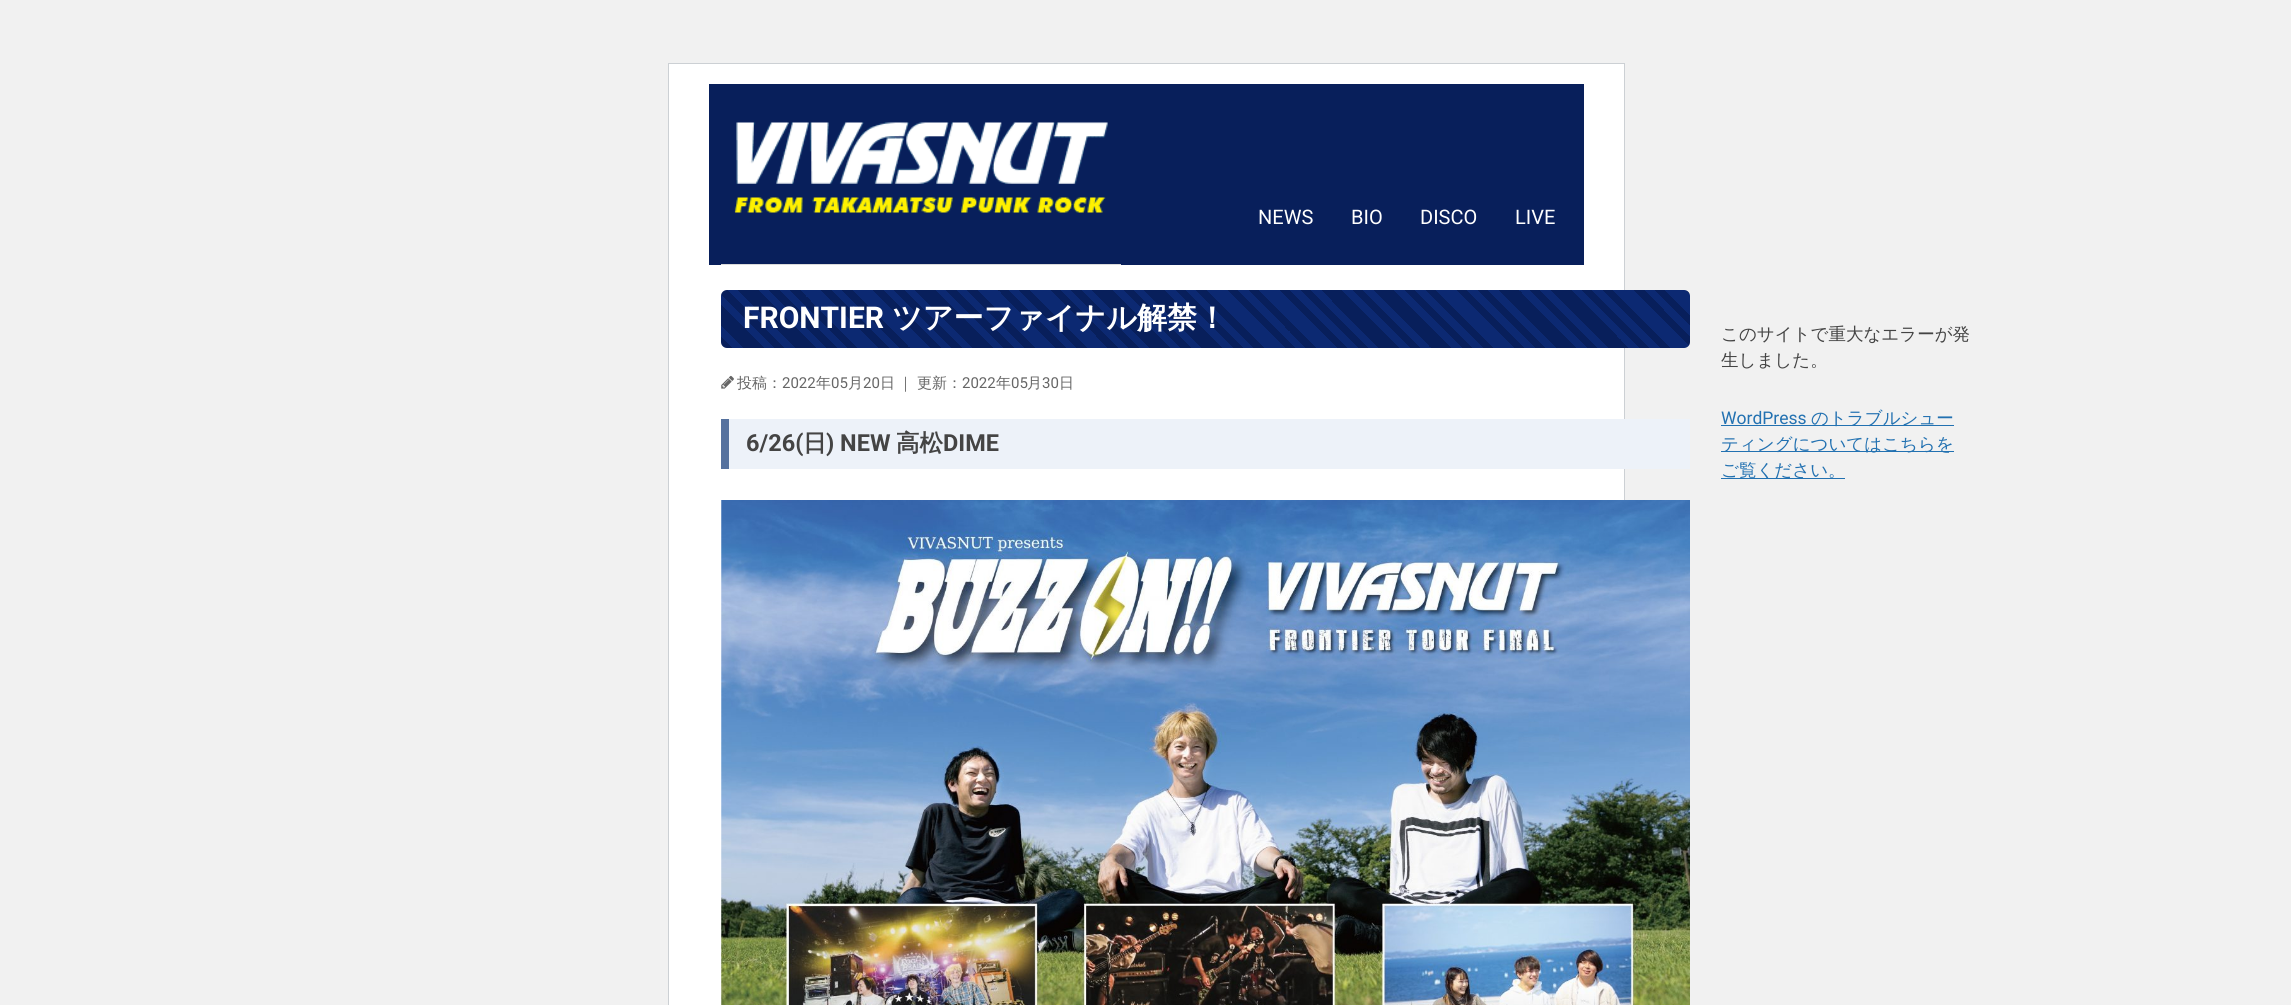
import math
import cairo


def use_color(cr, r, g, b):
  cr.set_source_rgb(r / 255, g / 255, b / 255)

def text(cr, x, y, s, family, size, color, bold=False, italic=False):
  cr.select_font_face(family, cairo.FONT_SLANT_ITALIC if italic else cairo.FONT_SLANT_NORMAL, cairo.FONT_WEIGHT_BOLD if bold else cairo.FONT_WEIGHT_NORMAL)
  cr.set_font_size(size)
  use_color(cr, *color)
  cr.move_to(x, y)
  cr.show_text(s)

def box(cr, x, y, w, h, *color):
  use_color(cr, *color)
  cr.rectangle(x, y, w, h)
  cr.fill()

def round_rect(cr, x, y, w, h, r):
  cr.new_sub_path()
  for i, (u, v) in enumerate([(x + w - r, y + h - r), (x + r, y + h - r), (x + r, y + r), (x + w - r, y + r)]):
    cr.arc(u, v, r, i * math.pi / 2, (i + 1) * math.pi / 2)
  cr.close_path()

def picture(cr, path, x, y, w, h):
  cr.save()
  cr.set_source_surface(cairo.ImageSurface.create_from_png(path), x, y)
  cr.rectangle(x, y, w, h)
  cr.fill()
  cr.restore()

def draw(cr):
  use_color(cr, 241, 241, 241)
  cr.paint()
  use_color(cr, 255, 255, 255)
  cr.rectangle(668.5, 63.5, 956, 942)
  cr.fill_preserve()
  use_color(cr, 204, 208, 212)
  cr.set_line_width(1)
  cr.stroke()
  box(cr, 709, 84, 875, 181, 8, 31, 91)
  box(cr, 721, 264, 400, 1, 218, 218, 218)
  picture(cr, "img_01.png", 734, 122, 374, 91)
  gradient = cairo.LinearGradient(949, 575, 1471, 54)
  gradient.add_color_stop_rgba(0, 0.031, 0.122, 0.357, 1)
  gradient.add_color_stop_rgba(0.01, 0.031, 0.122, 0.357, 1)
  gradient.add_color_stop_rgba(0.01, 0.047, 0.161, 0.447, 1)
  gradient.add_color_stop_rgba(0.02, 0.047, 0.161, 0.447, 1)
  gradient.add_color_stop_rgba(0.02, 0.031, 0.122, 0.357, 1)
  gradient.add_color_stop_rgba(0.03, 0.031, 0.122, 0.357, 1)
  gradient.add_color_stop_rgba(0.03, 0.047, 0.161, 0.447, 1)
  gradient.add_color_stop_rgba(0.03, 0.047, 0.161, 0.447, 1)
  gradient.add_color_stop_rgba(0.03, 0.031, 0.122, 0.357, 1)
  gradient.add_color_stop_rgba(0.04, 0.031, 0.122, 0.357, 1)
  gradient.add_color_stop_rgba(0.04, 0.047, 0.161, 0.447, 1)
  gradient.add_color_stop_rgba(0.05, 0.047, 0.161, 0.447, 1)
  gradient.add_color_stop_rgba(0.05, 0.031, 0.122, 0.357, 1)
  gradient.add_color_stop_rgba(0.06, 0.031, 0.122, 0.357, 1)
  gradient.add_color_stop_rgba(0.06, 0.047, 0.161, 0.447, 1)
  gradient.add_color_stop_rgba(0.07, 0.047, 0.161, 0.447, 1)
  gradient.add_color_stop_rgba(0.07, 0.031, 0.122, 0.357, 1)
  gradient.add_color_stop_rgba(0.08, 0.031, 0.122, 0.357, 1)
  gradient.add_color_stop_rgba(0.08, 0.047, 0.161, 0.447, 1)
  gradient.add_color_stop_rgba(0.08, 0.047, 0.161, 0.447, 1)
  gradient.add_color_stop_rgba(0.08, 0.031, 0.122, 0.357, 1)
  gradient.add_color_stop_rgba(0.09, 0.031, 0.122, 0.357, 1)
  gradient.add_color_stop_rgba(0.09, 0.047, 0.161, 0.447, 1)
  gradient.add_color_stop_rgba(0.1, 0.047, 0.161, 0.447, 1)
  gradient.add_color_stop_rgba(0.1, 0.031, 0.122, 0.357, 1)
  gradient.add_color_stop_rgba(0.11, 0.031, 0.122, 0.357, 1)
  gradient.add_color_stop_rgba(0.11, 0.047, 0.161, 0.447, 1)
  gradient.add_color_stop_rgba(0.12, 0.047, 0.161, 0.447, 1)
  gradient.add_color_stop_rgba(0.12, 0.031, 0.122, 0.357, 1)
  gradient.add_color_stop_rgba(0.13, 0.031, 0.122, 0.357, 1)
  gradient.add_color_stop_rgba(0.13, 0.047, 0.161, 0.447, 1)
  gradient.add_color_stop_rgba(0.14, 0.047, 0.161, 0.447, 1)
  gradient.add_color_stop_rgba(0.14, 0.031, 0.122, 0.357, 1)
  gradient.add_color_stop_rgba(0.14, 0.031, 0.122, 0.357, 1)
  gradient.add_color_stop_rgba(0.14, 0.047, 0.161, 0.447, 1)
  gradient.add_color_stop_rgba(0.15, 0.047, 0.161, 0.447, 1)
  gradient.add_color_stop_rgba(0.15, 0.031, 0.122, 0.357, 1)
  gradient.add_color_stop_rgba(0.16, 0.031, 0.122, 0.357, 1)
  gradient.add_color_stop_rgba(0.16, 0.047, 0.161, 0.447, 1)
  gradient.add_color_stop_rgba(0.17, 0.047, 0.161, 0.447, 1)
  gradient.add_color_stop_rgba(0.17, 0.031, 0.122, 0.357, 1)
  gradient.add_color_stop_rgba(0.18, 0.031, 0.122, 0.357, 1)
  gradient.add_color_stop_rgba(0.18, 0.047, 0.161, 0.447, 1)
  gradient.add_color_stop_rgba(0.19, 0.047, 0.161, 0.447, 1)
  gradient.add_color_stop_rgba(0.19, 0.031, 0.122, 0.357, 1)
  gradient.add_color_stop_rgba(0.19, 0.031, 0.122, 0.357, 1)
  gradient.add_color_stop_rgba(0.19, 0.047, 0.161, 0.447, 1)
  gradient.add_color_stop_rgba(0.2, 0.047, 0.161, 0.447, 1)
  gradient.add_color_stop_rgba(0.2, 0.031, 0.122, 0.357, 1)
  gradient.add_color_stop_rgba(0.21, 0.031, 0.122, 0.357, 1)
  gradient.add_color_stop_rgba(0.21, 0.047, 0.161, 0.447, 1)
  gradient.add_color_stop_rgba(0.22, 0.047, 0.161, 0.447, 1)
  gradient.add_color_stop_rgba(0.22, 0.031, 0.122, 0.357, 1)
  gradient.add_color_stop_rgba(0.23, 0.031, 0.122, 0.357, 1)
  gradient.add_color_stop_rgba(0.23, 0.047, 0.161, 0.447, 1)
  gradient.add_color_stop_rgba(0.24, 0.047, 0.161, 0.447, 1)
  gradient.add_color_stop_rgba(0.24, 0.031, 0.122, 0.357, 1)
  gradient.add_color_stop_rgba(0.25, 0.031, 0.122, 0.357, 1)
  gradient.add_color_stop_rgba(0.25, 0.047, 0.161, 0.447, 1)
  gradient.add_color_stop_rgba(0.25, 0.047, 0.161, 0.447, 1)
  gradient.add_color_stop_rgba(0.25, 0.031, 0.122, 0.357, 1)
  gradient.add_color_stop_rgba(0.26, 0.031, 0.122, 0.357, 1)
  gradient.add_color_stop_rgba(0.26, 0.047, 0.161, 0.447, 1)
  gradient.add_color_stop_rgba(0.27, 0.047, 0.161, 0.447, 1)
  gradient.add_color_stop_rgba(0.27, 0.031, 0.122, 0.357, 1)
  gradient.add_color_stop_rgba(0.28, 0.031, 0.122, 0.357, 1)
  gradient.add_color_stop_rgba(0.28, 0.047, 0.161, 0.447, 1)
  gradient.add_color_stop_rgba(0.29, 0.047, 0.161, 0.447, 1)
  gradient.add_color_stop_rgba(0.29, 0.031, 0.122, 0.357, 1)
  gradient.add_color_stop_rgba(0.3, 0.031, 0.122, 0.357, 1)
  gradient.add_color_stop_rgba(0.3, 0.047, 0.161, 0.447, 1)
  gradient.add_color_stop_rgba(0.31, 0.047, 0.161, 0.447, 1)
  gradient.add_color_stop_rgba(0.31, 0.031, 0.122, 0.357, 1)
  gradient.add_color_stop_rgba(0.31, 0.031, 0.122, 0.357, 1)
  gradient.add_color_stop_rgba(0.31, 0.047, 0.161, 0.447, 1)
  gradient.add_color_stop_rgba(0.32, 0.047, 0.161, 0.447, 1)
  gradient.add_color_stop_rgba(0.32, 0.031, 0.122, 0.357, 1)
  gradient.add_color_stop_rgba(0.33, 0.031, 0.122, 0.357, 1)
  gradient.add_color_stop_rgba(0.33, 0.047, 0.161, 0.447, 1)
  gradient.add_color_stop_rgba(0.34, 0.047, 0.161, 0.447, 1)
  gradient.add_color_stop_rgba(0.34, 0.031, 0.122, 0.357, 1)
  gradient.add_color_stop_rgba(0.35, 0.031, 0.122, 0.357, 1)
  gradient.add_color_stop_rgba(0.35, 0.047, 0.161, 0.447, 1)
  gradient.add_color_stop_rgba(0.36, 0.047, 0.161, 0.447, 1)
  gradient.add_color_stop_rgba(0.36, 0.031, 0.122, 0.357, 1)
  gradient.add_color_stop_rgba(0.36, 0.031, 0.122, 0.357, 1)
  gradient.add_color_stop_rgba(0.36, 0.047, 0.161, 0.447, 1)
  gradient.add_color_stop_rgba(0.37, 0.047, 0.161, 0.447, 1)
  gradient.add_color_stop_rgba(0.37, 0.031, 0.122, 0.357, 1)
  gradient.add_color_stop_rgba(0.38, 0.031, 0.122, 0.357, 1)
  gradient.add_color_stop_rgba(0.38, 0.047, 0.161, 0.447, 1)
  gradient.add_color_stop_rgba(0.39, 0.047, 0.161, 0.447, 1)
  gradient.add_color_stop_rgba(0.39, 0.031, 0.122, 0.357, 1)
  gradient.add_color_stop_rgba(0.4, 0.031, 0.122, 0.357, 1)
  gradient.add_color_stop_rgba(0.4, 0.047, 0.161, 0.447, 1)
  gradient.add_color_stop_rgba(0.41, 0.047, 0.161, 0.447, 1)
  gradient.add_color_stop_rgba(0.41, 0.031, 0.122, 0.357, 1)
  gradient.add_color_stop_rgba(0.42, 0.031, 0.122, 0.357, 1)
  gradient.add_color_stop_rgba(0.42, 0.047, 0.161, 0.447, 1)
  gradient.add_color_stop_rgba(0.42, 0.047, 0.161, 0.447, 1)
  gradient.add_color_stop_rgba(0.42, 0.031, 0.122, 0.357, 1)
  gradient.add_color_stop_rgba(0.43, 0.031, 0.122, 0.357, 1)
  gradient.add_color_stop_rgba(0.43, 0.047, 0.161, 0.447, 1)
  gradient.add_color_stop_rgba(0.44, 0.047, 0.161, 0.447, 1)
  gradient.add_color_stop_rgba(0.44, 0.031, 0.122, 0.357, 1)
  gradient.add_color_stop_rgba(0.45, 0.031, 0.122, 0.357, 1)
  gradient.add_color_stop_rgba(0.45, 0.047, 0.161, 0.447, 1)
  gradient.add_color_stop_rgba(0.46, 0.047, 0.161, 0.447, 1)
  gradient.add_color_stop_rgba(0.46, 0.031, 0.122, 0.357, 1)
  gradient.add_color_stop_rgba(0.47, 0.031, 0.122, 0.357, 1)
  gradient.add_color_stop_rgba(0.47, 0.047, 0.161, 0.447, 1)
  gradient.add_color_stop_rgba(0.47, 0.047, 0.161, 0.447, 1)
  gradient.add_color_stop_rgba(0.47, 0.031, 0.122, 0.357, 1)
  gradient.add_color_stop_rgba(0.48, 0.031, 0.122, 0.357, 1)
  gradient.add_color_stop_rgba(0.48, 0.047, 0.161, 0.447, 1)
  gradient.add_color_stop_rgba(0.49, 0.047, 0.161, 0.447, 1)
  gradient.add_color_stop_rgba(0.49, 0.031, 0.122, 0.357, 1)
  gradient.add_color_stop_rgba(0.5, 0.031, 0.122, 0.357, 1)
  gradient.add_color_stop_rgba(0.5, 0.047, 0.161, 0.447, 1)
  gradient.add_color_stop_rgba(0.51, 0.047, 0.161, 0.447, 1)
  gradient.add_color_stop_rgba(0.51, 0.031, 0.122, 0.357, 1)
  gradient.add_color_stop_rgba(0.52, 0.031, 0.122, 0.357, 1)
  gradient.add_color_stop_rgba(0.52, 0.047, 0.161, 0.447, 1)
  gradient.add_color_stop_rgba(0.53, 0.047, 0.161, 0.447, 1)
  gradient.add_color_stop_rgba(0.53, 0.031, 0.122, 0.357, 1)
  gradient.add_color_stop_rgba(0.53, 0.031, 0.122, 0.357, 1)
  gradient.add_color_stop_rgba(0.53, 0.047, 0.161, 0.447, 1)
  gradient.add_color_stop_rgba(0.54, 0.047, 0.161, 0.447, 1)
  gradient.add_color_stop_rgba(0.54, 0.031, 0.122, 0.357, 1)
  gradient.add_color_stop_rgba(0.55, 0.031, 0.122, 0.357, 1)
  gradient.add_color_stop_rgba(0.55, 0.047, 0.161, 0.447, 1)
  gradient.add_color_stop_rgba(0.56, 0.047, 0.161, 0.447, 1)
  gradient.add_color_stop_rgba(0.56, 0.031, 0.122, 0.357, 1)
  gradient.add_color_stop_rgba(0.57, 0.031, 0.122, 0.357, 1)
  gradient.add_color_stop_rgba(0.57, 0.047, 0.161, 0.447, 1)
  gradient.add_color_stop_rgba(0.58, 0.047, 0.161, 0.447, 1)
  gradient.add_color_stop_rgba(0.58, 0.031, 0.122, 0.357, 1)
  gradient.add_color_stop_rgba(0.58, 0.031, 0.122, 0.357, 1)
  gradient.add_color_stop_rgba(0.58, 0.047, 0.161, 0.447, 1)
  gradient.add_color_stop_rgba(0.59, 0.047, 0.161, 0.447, 1)
  gradient.add_color_stop_rgba(0.59, 0.031, 0.122, 0.357, 1)
  gradient.add_color_stop_rgba(0.6, 0.031, 0.122, 0.357, 1)
  gradient.add_color_stop_rgba(0.6, 0.047, 0.161, 0.447, 1)
  gradient.add_color_stop_rgba(0.61, 0.047, 0.161, 0.447, 1)
  gradient.add_color_stop_rgba(0.61, 0.031, 0.122, 0.357, 1)
  gradient.add_color_stop_rgba(0.62, 0.031, 0.122, 0.357, 1)
  gradient.add_color_stop_rgba(0.62, 0.047, 0.161, 0.447, 1)
  gradient.add_color_stop_rgba(0.63, 0.047, 0.161, 0.447, 1)
  gradient.add_color_stop_rgba(0.63, 0.031, 0.122, 0.357, 1)
  gradient.add_color_stop_rgba(0.64, 0.031, 0.122, 0.357, 1)
  gradient.add_color_stop_rgba(0.64, 0.047, 0.161, 0.447, 1)
  gradient.add_color_stop_rgba(0.64, 0.047, 0.161, 0.447, 1)
  gradient.add_color_stop_rgba(0.64, 0.031, 0.122, 0.357, 1)
  gradient.add_color_stop_rgba(0.65, 0.031, 0.122, 0.357, 1)
  gradient.add_color_stop_rgba(0.65, 0.047, 0.161, 0.447, 1)
  gradient.add_color_stop_rgba(0.66, 0.047, 0.161, 0.447, 1)
  gradient.add_color_stop_rgba(0.66, 0.031, 0.122, 0.357, 1)
  gradient.add_color_stop_rgba(0.67, 0.031, 0.122, 0.357, 1)
  gradient.add_color_stop_rgba(0.67, 0.047, 0.161, 0.447, 1)
  gradient.add_color_stop_rgba(0.68, 0.047, 0.161, 0.447, 1)
  gradient.add_color_stop_rgba(0.68, 0.031, 0.122, 0.357, 1)
  gradient.add_color_stop_rgba(0.69, 0.031, 0.122, 0.357, 1)
  gradient.add_color_stop_rgba(0.69, 0.047, 0.161, 0.447, 1)
  gradient.add_color_stop_rgba(0.69, 0.047, 0.161, 0.447, 1)
  gradient.add_color_stop_rgba(0.69, 0.031, 0.122, 0.357, 1)
  gradient.add_color_stop_rgba(0.7, 0.031, 0.122, 0.357, 1)
  gradient.add_color_stop_rgba(0.7, 0.047, 0.161, 0.447, 1)
  gradient.add_color_stop_rgba(0.71, 0.047, 0.161, 0.447, 1)
  gradient.add_color_stop_rgba(0.71, 0.031, 0.122, 0.357, 1)
  gradient.add_color_stop_rgba(0.72, 0.031, 0.122, 0.357, 1)
  gradient.add_color_stop_rgba(0.72, 0.047, 0.161, 0.447, 1)
  gradient.add_color_stop_rgba(0.73, 0.047, 0.161, 0.447, 1)
  gradient.add_color_stop_rgba(0.73, 0.031, 0.122, 0.357, 1)
  gradient.add_color_stop_rgba(0.74, 0.031, 0.122, 0.357, 1)
  gradient.add_color_stop_rgba(0.74, 0.047, 0.161, 0.447, 1)
  gradient.add_color_stop_rgba(0.75, 0.047, 0.161, 0.447, 1)
  gradient.add_color_stop_rgba(0.75, 0.031, 0.122, 0.357, 1)
  gradient.add_color_stop_rgba(0.75, 0.031, 0.122, 0.357, 1)
  gradient.add_color_stop_rgba(0.75, 0.047, 0.161, 0.447, 1)
  gradient.add_color_stop_rgba(0.76, 0.047, 0.161, 0.447, 1)
  gradient.add_color_stop_rgba(0.76, 0.031, 0.122, 0.357, 1)
  gradient.add_color_stop_rgba(0.77, 0.031, 0.122, 0.357, 1)
  gradient.add_color_stop_rgba(0.77, 0.047, 0.161, 0.447, 1)
  gradient.add_color_stop_rgba(0.78, 0.047, 0.161, 0.447, 1)
  gradient.add_color_stop_rgba(0.78, 0.031, 0.122, 0.357, 1)
  gradient.add_color_stop_rgba(0.79, 0.031, 0.122, 0.357, 1)
  gradient.add_color_stop_rgba(0.79, 0.047, 0.161, 0.447, 1)
  gradient.add_color_stop_rgba(0.8, 0.047, 0.161, 0.447, 1)
  gradient.add_color_stop_rgba(0.8, 0.031, 0.122, 0.357, 1)
  gradient.add_color_stop_rgba(0.81, 0.031, 0.122, 0.357, 1)
  gradient.add_color_stop_rgba(0.81, 0.047, 0.161, 0.447, 1)
  gradient.add_color_stop_rgba(0.81, 0.047, 0.161, 0.447, 1)
  gradient.add_color_stop_rgba(0.81, 0.031, 0.122, 0.357, 1)
  gradient.add_color_stop_rgba(0.82, 0.031, 0.122, 0.357, 1)
  gradient.add_color_stop_rgba(0.82, 0.047, 0.161, 0.447, 1)
  gradient.add_color_stop_rgba(0.83, 0.047, 0.161, 0.447, 1)
  gradient.add_color_stop_rgba(0.83, 0.031, 0.122, 0.357, 1)
  gradient.add_color_stop_rgba(0.84, 0.031, 0.122, 0.357, 1)
  gradient.add_color_stop_rgba(0.84, 0.047, 0.161, 0.447, 1)
  gradient.add_color_stop_rgba(0.85, 0.047, 0.161, 0.447, 1)
  gradient.add_color_stop_rgba(0.85, 0.031, 0.122, 0.357, 1)
  gradient.add_color_stop_rgba(0.86, 0.031, 0.122, 0.357, 1)
  gradient.add_color_stop_rgba(0.86, 0.047, 0.161, 0.447, 1)
  gradient.add_color_stop_rgba(0.86, 0.047, 0.161, 0.447, 1)
  gradient.add_color_stop_rgba(0.86, 0.031, 0.122, 0.357, 1)
  gradient.add_color_stop_rgba(0.87, 0.031, 0.122, 0.357, 1)
  gradient.add_color_stop_rgba(0.87, 0.047, 0.161, 0.447, 1)
  gradient.add_color_stop_rgba(0.88, 0.047, 0.161, 0.447, 1)
  gradient.add_color_stop_rgba(0.88, 0.031, 0.122, 0.357, 1)
  gradient.add_color_stop_rgba(0.89, 0.031, 0.122, 0.357, 1)
  gradient.add_color_stop_rgba(0.89, 0.047, 0.161, 0.447, 1)
  gradient.add_color_stop_rgba(0.9, 0.047, 0.161, 0.447, 1)
  gradient.add_color_stop_rgba(0.9, 0.031, 0.122, 0.357, 1)
  gradient.add_color_stop_rgba(0.91, 0.031, 0.122, 0.357, 1)
  gradient.add_color_stop_rgba(0.91, 0.047, 0.161, 0.447, 1)
  gradient.add_color_stop_rgba(0.92, 0.047, 0.161, 0.447, 1)
  gradient.add_color_stop_rgba(0.92, 0.031, 0.122, 0.357, 1)
  gradient.add_color_stop_rgba(0.92, 0.031, 0.122, 0.357, 1)
  gradient.add_color_stop_rgba(0.92, 0.047, 0.161, 0.447, 1)
  gradient.add_color_stop_rgba(0.93, 0.047, 0.161, 0.447, 1)
  gradient.add_color_stop_rgba(0.93, 0.031, 0.122, 0.357, 1)
  gradient.add_color_stop_rgba(0.94, 0.031, 0.122, 0.357, 1)
  gradient.add_color_stop_rgba(0.94, 0.047, 0.161, 0.447, 1)
  gradient.add_color_stop_rgba(0.95, 0.047, 0.161, 0.447, 1)
  gradient.add_color_stop_rgba(0.95, 0.031, 0.122, 0.357, 1)
  gradient.add_color_stop_rgba(0.96, 0.031, 0.122, 0.357, 1)
  gradient.add_color_stop_rgba(0.96, 0.047, 0.161, 0.447, 1)
  gradient.add_color_stop_rgba(0.97, 0.047, 0.161, 0.447, 1)
  gradient.add_color_stop_rgba(0.97, 0.031, 0.122, 0.357, 1)
  gradient.add_color_stop_rgba(0.97, 0.031, 0.122, 0.357, 1)
  gradient.add_color_stop_rgba(0.97, 0.047, 0.161, 0.447, 1)
  gradient.add_color_stop_rgba(0.98, 0.047, 0.161, 0.447, 1)
  gradient.add_color_stop_rgba(0.98, 0.031, 0.122, 0.357, 1)
  gradient.add_color_stop_rgba(0.99, 0.031, 0.122, 0.357, 1)
  gradient.add_color_stop_rgba(0.99, 0.047, 0.161, 0.447, 1)
  gradient.add_color_stop_rgba(1, 0.047, 0.161, 0.447, 1)
  cr.set_source(gradient)
  round_rect(cr, 721, 290, 969, 58, 6)
  cr.fill()
  picture(cr, "img_02.png", 721, 375, 13, 14)
  box(cr, 729, 419, 961, 50, 237, 242, 249)
  box(cr, 721, 419, 8, 50, 85, 113, 158)
  picture(cr, "img_03.png", 721, 500, 969, 505)
  box(cr, 1721, 425, 233, 1, 34, 113, 177)
  box(cr, 1721, 451, 233, 1, 34, 113, 177)
  box(cr, 1721, 478, 124, 1, 34, 113, 177)
  text(cr, 1258, 224, "NEWS", "Roboto", 20, (255, 255, 255))
  text(cr, 1351, 224, "BIO", "Roboto", 20, (255, 255, 255))
  text(cr, 1420, 224, "DISCO", "Roboto", 20, (255, 255, 255))
  text(cr, 1515, 224, "LIVE", "Roboto", 20, (255, 255, 255))
  text(cr, 743, 328, "FRONTIER", "Roboto", 30, (255, 255, 255), bold=True)
  text(cr, 892, 328, "ツアーファイナル解禁！", "WenQuanYi Zen Hei", 30, (255, 255, 255), bold=True)
  text(cr, 737, 388, "投稿：", "WenQuanYi Zen Hei Medium", 15, (102, 102, 102))
  text(cr, 782, 388, "2022", "Roboto", 15, (102, 102, 102))
  text(cr, 816, 388, "年", "WenQuanYi Zen Hei Medium", 15, (102, 102, 102))
  text(cr, 831, 388, "05", "Roboto", 15, (102, 102, 102))
  text(cr, 848, 388, "月", "WenQuanYi Zen Hei Medium", 15, (102, 102, 102))
  text(cr, 863, 388, "20", "Roboto", 15, (102, 102, 102))
  text(cr, 880, 388, "日", "WenQuanYi Zen Hei Medium", 15, (102, 102, 102))
  text(cr, 898, 388, "｜", "WenQuanYi Zen Hei Medium", 15, (102, 102, 102))
  text(cr, 917, 388, "更新：", "WenQuanYi Zen Hei Medium", 15, (102, 102, 102))
  text(cr, 962, 388, "2022", "Roboto", 15, (102, 102, 102))
  text(cr, 996, 388, "年", "WenQuanYi Zen Hei Medium", 15, (102, 102, 102))
  text(cr, 1011, 388, "05", "Roboto", 15, (102, 102, 102))
  text(cr, 1027, 388, "月", "WenQuanYi Zen Hei Medium", 15, (102, 102, 102))
  text(cr, 1042, 388, "30", "Roboto", 15, (102, 102, 102))
  text(cr, 1059, 388, "日", "WenQuanYi Zen Hei Medium", 15, (102, 102, 102))
  text(cr, 746, 451, "6/26(", "Roboto", 23.5, (68, 68, 68), bold=True)
  text(cr, 803, 451, "日", "WenQuanYi Zen Hei", 23.5, (68, 68, 68), bold=True)
  text(cr, 826, 451, ") NEW", "Roboto", 23.5, (68, 68, 68), bold=True)
  text(cr, 896, 451, "高松", "WenQuanYi Zen Hei", 23.5, (68, 68, 68), bold=True)
  text(cr, 943, 451, "DIME", "Roboto", 23.5, (68, 68, 68), bold=True)
  text(cr, 1721, 340, "このサイトで重大なエラーが発", "WenQuanYi Zen Hei Medium", 17.5, (68, 68, 68))
  text(cr, 1721, 366, "生しました。", "WenQuanYi Zen Hei Medium", 17.5, (68, 68, 68))
  text(cr, 1721, 424, "WordPress", "Roboto", 17.5, (34, 113, 177))
  text(cr, 1811, 424, "のトラブルシュー", "WenQuanYi Zen Hei Medium", 17.5, (34, 113, 177))
  text(cr, 1721, 450, "ティングについてはこちらを", "WenQuanYi Zen Hei Medium", 17.5, (34, 113, 177))
  text(cr, 1721, 476, "ご覧ください。", "WenQuanYi Zen Hei Medium", 17.5, (34, 113, 177))


surface = cairo.ImageSurface(cairo.FORMAT_RGB24, 2291, 1005)
cr = cairo.Context(surface)
options = cairo.FontOptions()
options.set_hint_metrics(cairo.HINT_METRICS_OFF)
options.set_hint_style(cairo.HINT_STYLE_NONE)
cr.set_font_options(options)
cr.set_miter_limit(4)
draw(cr)
surface.write_to_png("out.png")
